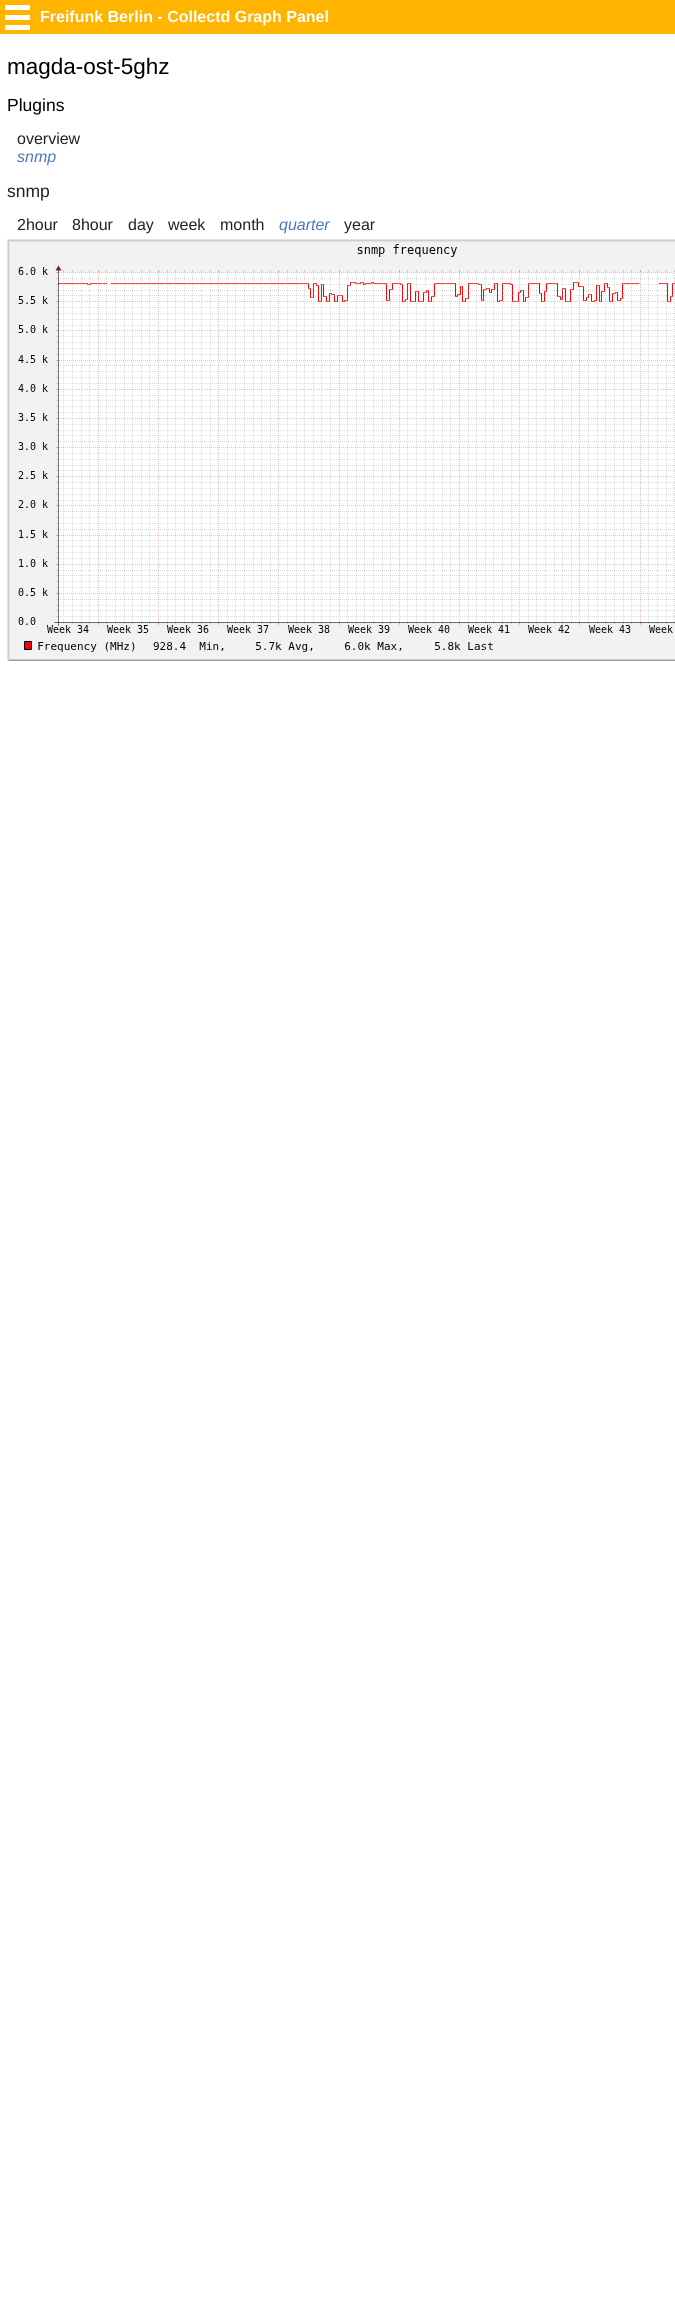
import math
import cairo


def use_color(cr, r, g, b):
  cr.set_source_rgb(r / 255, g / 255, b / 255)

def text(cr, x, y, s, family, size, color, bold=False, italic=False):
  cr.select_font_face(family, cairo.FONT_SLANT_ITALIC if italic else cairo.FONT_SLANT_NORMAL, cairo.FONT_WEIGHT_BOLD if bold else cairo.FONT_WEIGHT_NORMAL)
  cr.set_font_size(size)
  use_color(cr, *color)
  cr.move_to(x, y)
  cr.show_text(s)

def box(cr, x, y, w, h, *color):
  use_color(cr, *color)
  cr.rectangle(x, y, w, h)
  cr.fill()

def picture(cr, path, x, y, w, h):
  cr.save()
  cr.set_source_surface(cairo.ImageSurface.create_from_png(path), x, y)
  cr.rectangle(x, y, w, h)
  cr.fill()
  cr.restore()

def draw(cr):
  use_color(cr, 255, 255, 255)
  cr.paint()
  box(cr, 0, 0, 675, 34, 255, 180, 0)
  box(cr, 5, 5, 25, 5, 255, 255, 255)
  box(cr, 5, 25, 25, 5, 255, 255, 255)
  box(cr, 5, 15, 25, 5, 255, 255, 255)
  picture(cr, "img_01.png", 7, 239, 668, 422)
  text(cr, 40, 22, "Freifunk Berlin - Collectd Graph Panel", "Liberation Sans", 16, (255, 255, 255), bold=True)
  text(cr, 7, 74, "magda-ost-5ghz", "Liberation Sans", 22.5, (0, 0, 0))
  text(cr, 7, 111, "Plugins", "Liberation Sans", 17.5, (0, 0, 0))
  text(cr, 17, 144, "overview", "Liberation Sans", 16, (34, 34, 34))
  text(cr, 17, 162, "snmp", "Liberation Sans", 16, (77, 121, 181), italic=True)
  text(cr, 7, 197, "snmp", "Liberation Sans", 17.5, (34, 34, 34))
  text(cr, 17, 230, "2hour", "Liberation Sans", 16, (34, 34, 34))
  text(cr, 72, 230, "8hour", "Liberation Sans", 16, (34, 34, 34))
  text(cr, 128, 230, "day", "Liberation Sans", 16, (34, 34, 34))
  text(cr, 168, 230, "week", "Liberation Sans", 16, (34, 34, 34))
  text(cr, 220, 230, "month", "Liberation Sans", 16, (34, 34, 34))
  text(cr, 279, 230, "quarter", "Liberation Sans", 16, (77, 121, 181), italic=True)
  text(cr, 344, 230, "year", "Liberation Sans", 16, (34, 34, 34))


surface = cairo.ImageSurface(cairo.FORMAT_RGB24, 675, 2313)
cr = cairo.Context(surface)
options = cairo.FontOptions()
options.set_hint_metrics(cairo.HINT_METRICS_OFF)
options.set_hint_style(cairo.HINT_STYLE_NONE)
cr.set_font_options(options)
cr.set_miter_limit(4)
draw(cr)
surface.write_to_png("out.png")
